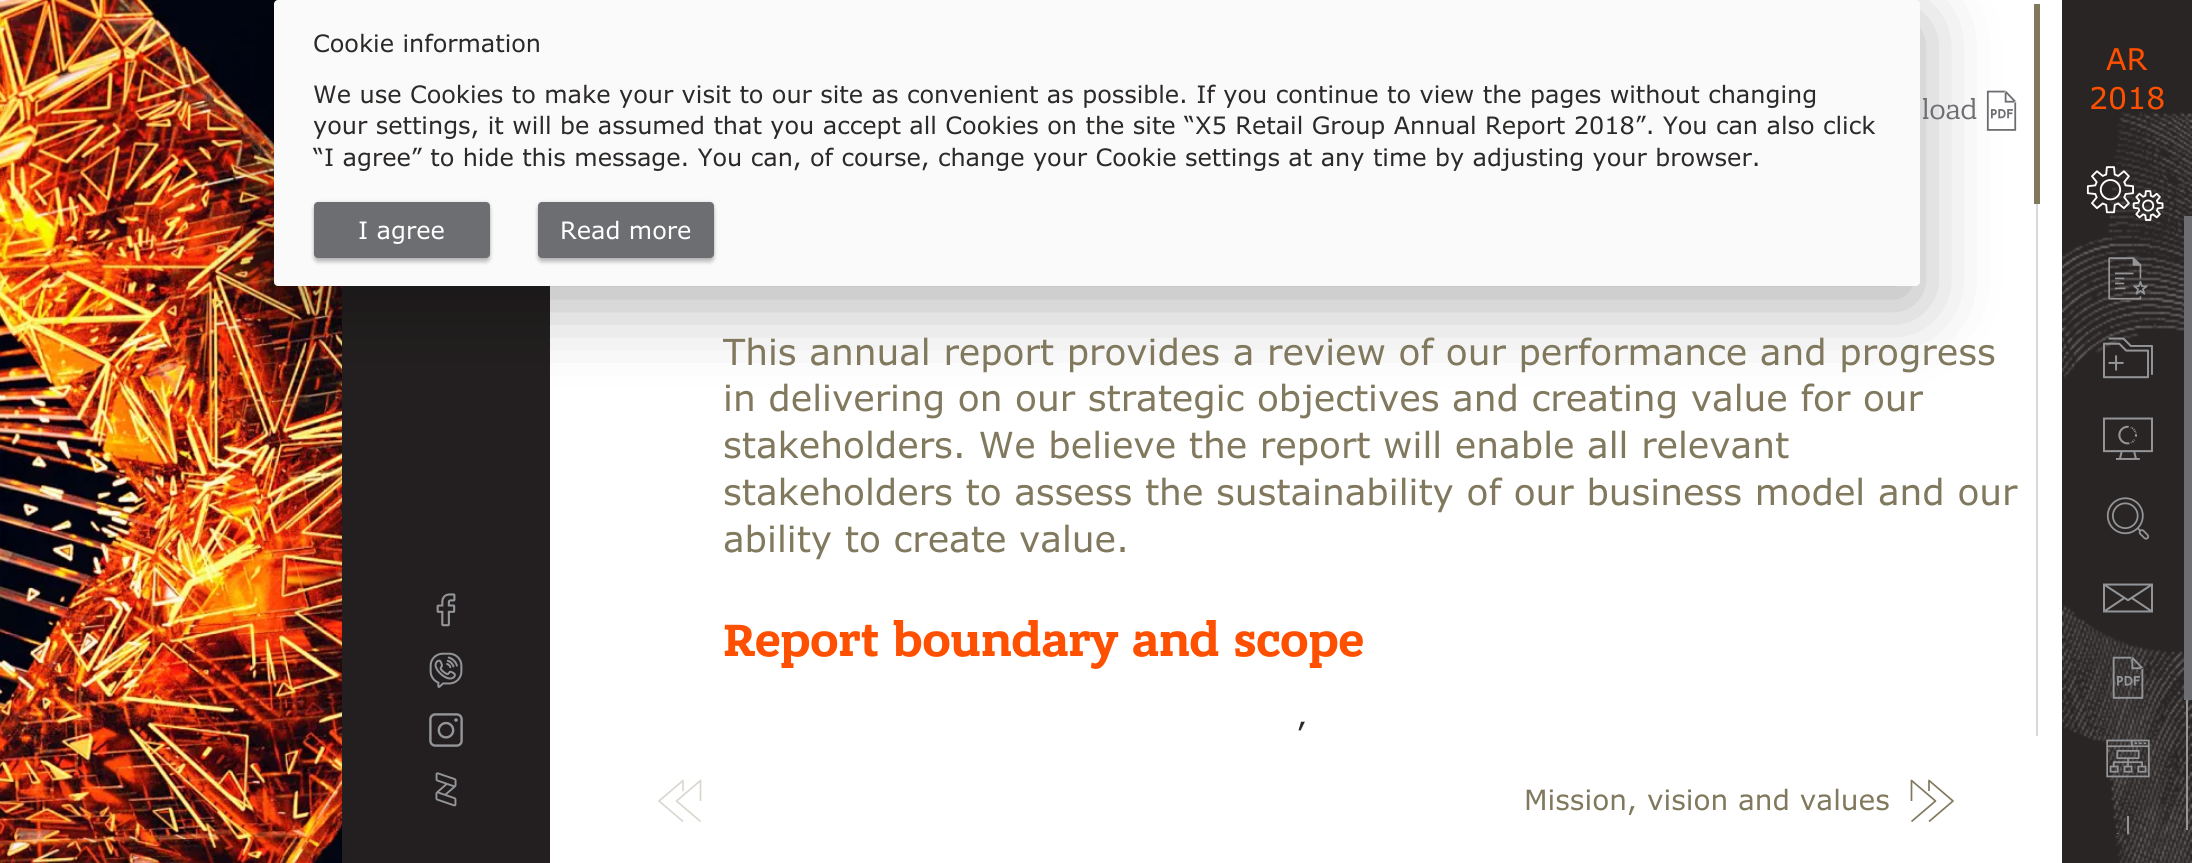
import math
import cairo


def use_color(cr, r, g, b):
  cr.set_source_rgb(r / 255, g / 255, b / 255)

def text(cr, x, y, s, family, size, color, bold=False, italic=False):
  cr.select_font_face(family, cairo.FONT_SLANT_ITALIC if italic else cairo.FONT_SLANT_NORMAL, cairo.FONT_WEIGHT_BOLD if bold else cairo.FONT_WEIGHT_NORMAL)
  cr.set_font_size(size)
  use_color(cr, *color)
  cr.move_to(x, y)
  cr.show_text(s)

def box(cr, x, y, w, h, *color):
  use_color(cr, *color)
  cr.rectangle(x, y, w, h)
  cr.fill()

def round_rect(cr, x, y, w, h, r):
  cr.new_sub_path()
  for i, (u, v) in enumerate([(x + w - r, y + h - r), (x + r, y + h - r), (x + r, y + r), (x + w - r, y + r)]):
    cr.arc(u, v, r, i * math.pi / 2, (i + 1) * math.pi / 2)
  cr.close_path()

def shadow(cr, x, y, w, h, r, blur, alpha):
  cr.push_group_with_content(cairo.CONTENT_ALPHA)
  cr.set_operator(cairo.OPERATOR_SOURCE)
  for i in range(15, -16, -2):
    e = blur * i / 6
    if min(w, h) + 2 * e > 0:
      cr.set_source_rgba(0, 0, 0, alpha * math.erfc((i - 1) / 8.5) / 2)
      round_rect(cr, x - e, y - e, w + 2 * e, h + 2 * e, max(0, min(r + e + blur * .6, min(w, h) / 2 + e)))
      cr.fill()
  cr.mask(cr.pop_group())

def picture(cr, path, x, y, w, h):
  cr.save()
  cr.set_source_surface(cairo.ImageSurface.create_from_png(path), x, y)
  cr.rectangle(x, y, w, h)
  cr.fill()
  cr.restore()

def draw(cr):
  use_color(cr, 255, 255, 255)
  cr.paint()
  picture(cr, "img_01.png", 0, 0, 342, 863)
  box(cr, 342, 286, 208, 577, 35, 31, 32)
  picture(cr, "img_15.png", 1986, 90, 31, 41)
  box(cr, 2034, 4, 6, 200, 129, 121, 94)
  use_color(cr, 0, 0, 0)
  shadow(cr, 274, 20, 1646, 286, 4, 38, 0.3)
  use_color(cr, 250, 250, 250)
  round_rect(cr, 274, 0, 1646, 286, 4)
  cr.fill()
  use_color(cr, 0, 0, 0)
  shadow(cr, 314, 202, 176, 56, 4, 2, 0.12)
  shadow(cr, 314, 206, 176, 56, 4, 2, 0.24)
  use_color(cr, 109, 110, 113)
  round_rect(cr, 314, 202, 176, 56, 4)
  cr.fill()
  use_color(cr, 0, 0, 0)
  shadow(cr, 538, 202, 176, 56, 4, 2, 0.12)
  shadow(cr, 538, 206, 176, 56, 4, 2, 0.24)
  use_color(cr, 109, 110, 113)
  round_rect(cr, 538, 202, 176, 56, 4)
  cr.fill()
  picture(cr, "img_02.png", 436, 593, 20, 34)
  picture(cr, "img_03.png", 429, 652, 34, 36)
  picture(cr, "img_04.png", 429, 713, 34, 34)
  picture(cr, "img_05.png", 435, 772, 22, 35)
  box(cr, 2062, 0, 130, 863, 41, 37, 36)
  picture(cr, "img_06.png", 2062, 112, 130, 751)
  picture(cr, "img_07.png", 2086, 166, 78, 55)
  picture(cr, "img_08.png", 2108, 257, 40, 43)
  picture(cr, "img_09.png", 2103, 337, 50, 42)
  picture(cr, "img_10.png", 2103, 417, 50, 43)
  picture(cr, "img_11.png", 2106, 497, 44, 43)
  picture(cr, "img_12.png", 2103, 583, 50, 30)
  picture(cr, "img_13.png", 2112, 656, 32, 43)
  picture(cr, "img_14.png", 2106, 739, 44, 39)
  cr.save()
  cr.rectangle(2062, 212, 130, 622)
  cr.clip()
  use_color(cr, 147, 149, 152)
  cr.new_path()
  cr.move_to(2116, 834)
  cr.line_to(2118, 833)
  cr.line_to(2128, 848)
  cr.line_to(2138, 834)
  cr.line_to(2140, 835)
  cr.line_to(2128, 851)
  cr.close_path()
  cr.move_to(2129, 816)
  cr.line_to(2129, 839)
  cr.line_to(2127, 839)
  cr.line_to(2127, 816)
  cr.close_path()
  cr.move_to(2143, 860)
  cr.line_to(2113, 860)
  cr.line_to(2113, 858)
  cr.line_to(2143, 858)
  cr.close_path()
  cr.fill()
  cr.restore()
  box(cr, 2186, 700, 2, 130, 148, 150, 154)
  box(cr, 2184, 216, 8, 484, 109, 110, 113)
  cr.new_path()
  cr.move_to(700.5, 801)
  cr.line_to(700.5, 780.5)
  cr.line_to(676.5, 801)
  cr.line_to(700.5, 821.5)
  cr.move_to(683, 791)
  cr.line_to(683, 780.5)
  cr.line_to(659, 801)
  cr.line_to(683, 821.5)
  use_color(cr, 217, 215, 207)
  cr.set_line_width(1.7)
  cr.set_line_join(cairo.LINE_JOIN_ROUND)
  cr.stroke()
  cr.new_path()
  cr.move_to(1911.5, 801)
  cr.line_to(1911.5, 780.5)
  cr.line_to(1935.5, 801)
  cr.line_to(1911.5, 821.5)
  cr.move_to(1929, 791)
  cr.line_to(1929, 780.5)
  cr.line_to(1953, 801)
  cr.line_to(1929, 821.5)
  use_color(cr, 129, 121, 94)
  cr.stroke()
  box(cr, 2036, 204, 2, 532, 217, 217, 217)
  text(cr, 313, 52, "Cookie information", "Verdana", 24, (44, 42, 41))
  text(cr, 313, 103, "We use Cookies to make your visit to our site as convenient as possible. If you continue to view the pages without changing", "Verdana", 24, (44, 42, 41))
  text(cr, 313, 134, "your settings, it will be assumed that you accept all Cookies on the site “X5 Retail Group Annual Report 2018”. You can also click", "Verdana", 24, (44, 42, 41))
  text(cr, 313, 166, "“I agree” to hide this message. You can, of course, change your Cookie settings at any time by adjusting your browser.", "Verdana", 24, (44, 42, 41))
  text(cr, 358, 239, "I agree", "Verdana", 24, (255, 255, 255))
  text(cr, 560, 239, "Read more", "Verdana", 24, (255, 255, 255))
  text(cr, 2106, 70, "AR", "Verdana", 30, (254, 80, 0))
  text(cr, 2089, 109, "2018", "Verdana", 30, (254, 80, 0))
  text(cr, 1922, 119, "load", "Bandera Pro", 28, (109, 110, 113))
  text(cr, 723, 365, "This annual report provides a review of our performance and progress", "Verdana", 36, (129, 121, 94))
  text(cr, 723, 411, "in delivering on our strategic objectives and creating value for our", "Verdana", 36, (129, 121, 94))
  text(cr, 723, 458, "stakeholders. We believe the report will enable all relevant", "Verdana", 36, (129, 121, 94))
  text(cr, 723, 505, "stakeholders to assess the sustainability of our business model and our", "Verdana", 36, (129, 121, 94))
  text(cr, 723, 552, "ability to create value.", "Verdana", 36, (129, 121, 94))
  text(cr, 723, 656, "Report boundary and scope", "Bandera Pro", 48, (254, 80, 0), bold=True)
  text(cr, 1296, 746, "’", "Verdana", 32, (44, 42, 41))
  text(cr, 1524, 810, "Mission, vision and values", "Verdana", 28, (129, 121, 94))


surface = cairo.ImageSurface(cairo.FORMAT_RGB24, 2192, 863)
cr = cairo.Context(surface)
options = cairo.FontOptions()
options.set_hint_metrics(cairo.HINT_METRICS_OFF)
options.set_hint_style(cairo.HINT_STYLE_NONE)
cr.set_font_options(options)
cr.set_miter_limit(4)
draw(cr)
surface.write_to_png("out.png")
